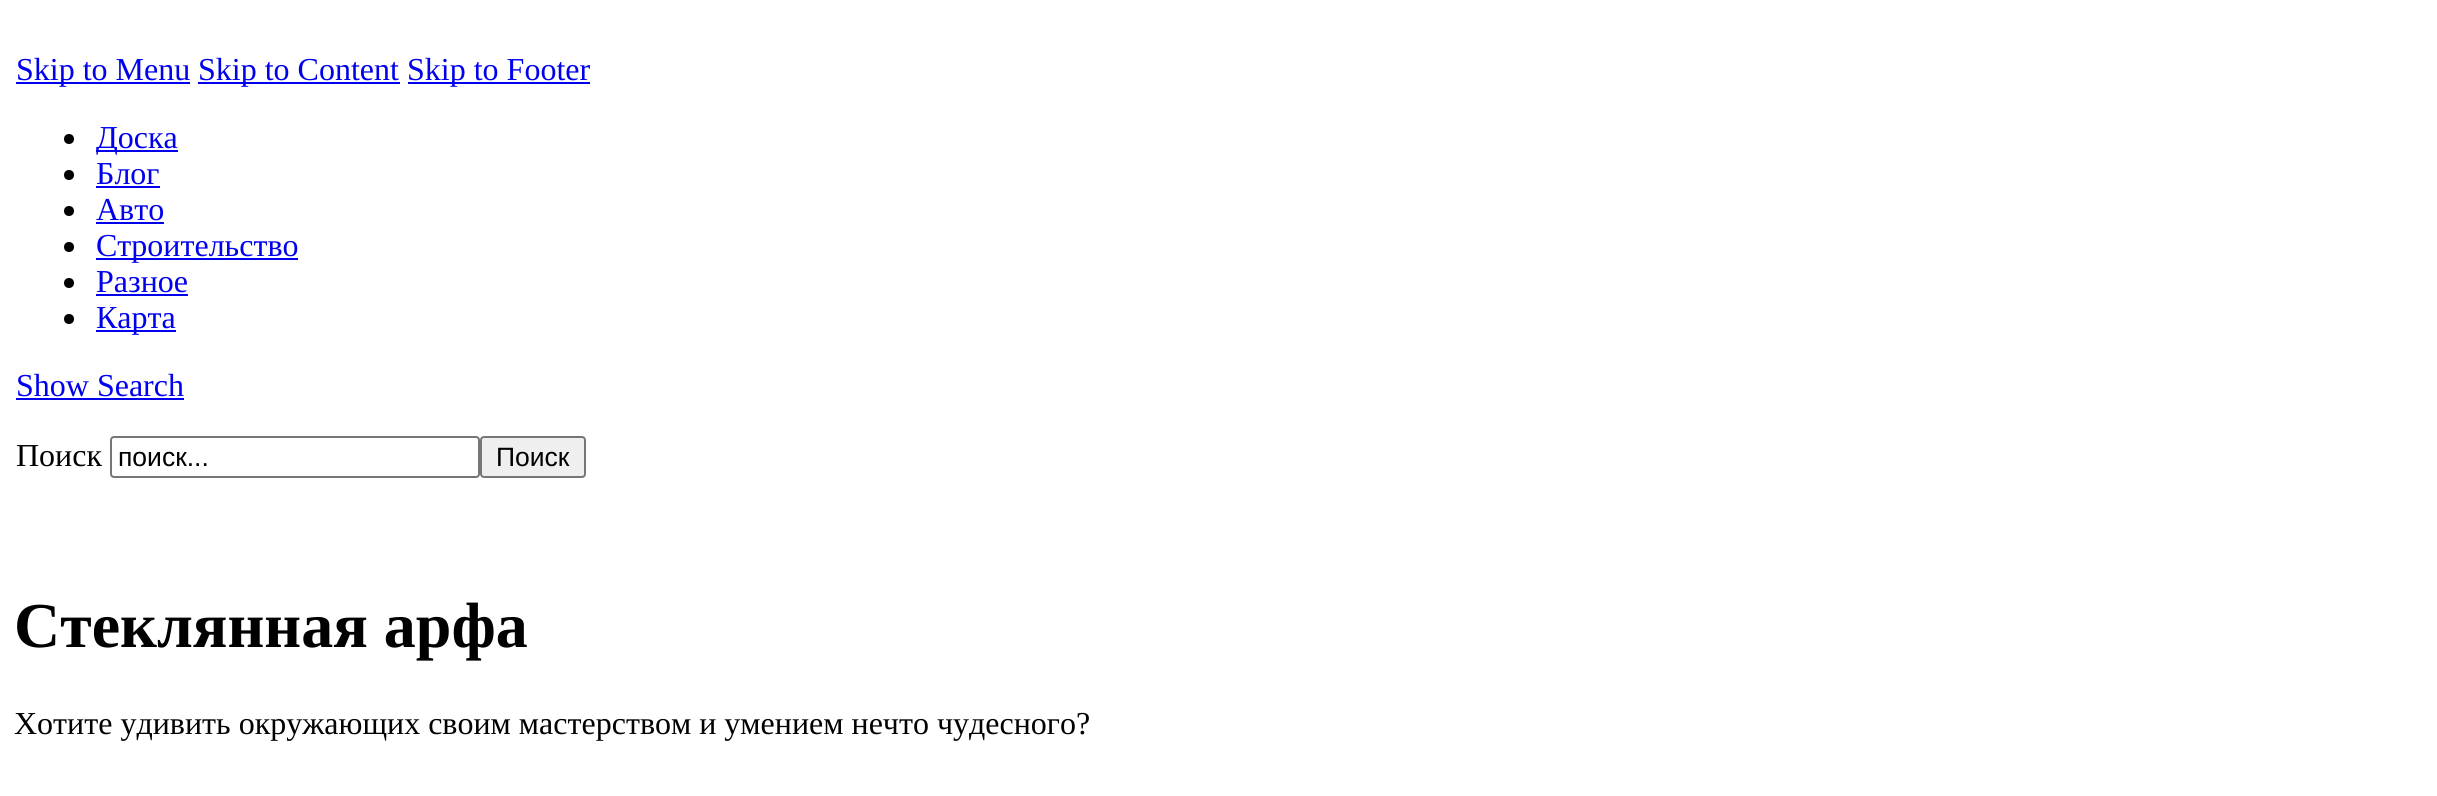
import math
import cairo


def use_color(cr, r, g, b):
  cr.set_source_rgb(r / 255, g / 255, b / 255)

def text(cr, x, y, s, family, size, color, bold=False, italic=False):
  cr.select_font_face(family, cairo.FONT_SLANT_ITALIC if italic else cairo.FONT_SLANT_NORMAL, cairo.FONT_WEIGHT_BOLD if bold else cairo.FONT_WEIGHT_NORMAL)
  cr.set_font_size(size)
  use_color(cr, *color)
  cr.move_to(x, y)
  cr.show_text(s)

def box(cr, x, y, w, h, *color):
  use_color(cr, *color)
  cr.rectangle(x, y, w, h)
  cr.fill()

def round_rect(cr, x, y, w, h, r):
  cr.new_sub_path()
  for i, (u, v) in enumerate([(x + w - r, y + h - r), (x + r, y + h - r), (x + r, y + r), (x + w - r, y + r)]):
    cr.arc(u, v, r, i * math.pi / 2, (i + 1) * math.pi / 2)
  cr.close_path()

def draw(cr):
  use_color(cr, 255, 255, 255)
  cr.paint()
  box(cr, 16, 82, 174, 2, 0, 0, 238)
  box(cr, 198, 82, 202, 2, 0, 0, 238)
  box(cr, 408, 82, 182, 2, 0, 0, 238)
  use_color(cr, 0, 0, 0)
  cr.arc(69, 139, 5, 0, 2 * math.pi)
  cr.fill()
  box(cr, 96, 150, 82, 2, 0, 0, 238)
  use_color(cr, 0, 0, 0)
  cr.arc(69, 175, 5, 0, 2 * math.pi)
  cr.fill()
  box(cr, 96, 186, 64, 2, 0, 0, 238)
  use_color(cr, 0, 0, 0)
  cr.arc(69, 211, 5, 0, 2 * math.pi)
  cr.fill()
  box(cr, 96, 222, 68, 2, 0, 0, 238)
  use_color(cr, 0, 0, 0)
  cr.arc(69, 247, 5, 0, 2 * math.pi)
  cr.fill()
  box(cr, 96, 258, 202, 2, 0, 0, 238)
  use_color(cr, 0, 0, 0)
  cr.arc(69, 283, 5, 0, 2 * math.pi)
  cr.fill()
  box(cr, 96, 294, 92, 2, 0, 0, 238)
  use_color(cr, 0, 0, 0)
  cr.arc(69, 319, 5, 0, 2 * math.pi)
  cr.fill()
  box(cr, 96, 330, 80, 2, 0, 0, 238)
  box(cr, 16, 398, 168, 2, 0, 0, 238)
  round_rect(cr, 111, 437, 368, 40, 3)
  use_color(cr, 118, 118, 118)
  cr.stroke()
  use_color(cr, 239, 239, 239)
  round_rect(cr, 481, 437, 104, 40, 3)
  cr.fill_preserve()
  use_color(cr, 118, 118, 118)
  cr.stroke()
  text(cr, 16, 80, "Skip to Menu", "Liberation Serif", 32, (0, 0, 238))
  text(cr, 198, 80, "Skip to Content", "Liberation Serif", 32, (0, 0, 238))
  text(cr, 407, 80, "Skip to Footer", "Liberation Serif", 32, (0, 0, 238))
  text(cr, 96, 148, "Доска", "Liberation Serif", 32, (0, 0, 238))
  text(cr, 96, 184, "Блог", "Liberation Serif", 32, (0, 0, 238))
  text(cr, 96, 220, "Авто", "Liberation Serif", 32, (0, 0, 238))
  text(cr, 96, 256, "Строительство", "Liberation Serif", 32, (0, 0, 238))
  text(cr, 96, 292, "Разное", "Liberation Serif", 32, (0, 0, 238))
  text(cr, 96, 328, "Карта", "Liberation Serif", 32, (0, 0, 238))
  text(cr, 16, 396, "Show Search", "Liberation Serif", 32, (0, 0, 238))
  text(cr, 16, 466, "Поиск", "Liberation Serif", 32, (0, 0, 0))
  text(cr, 118, 466, "поиск...", "Liberation Sans", 26.5, (0, 0, 0))
  text(cr, 496, 466, "Поиск", "Liberation Sans", 26.5, (0, 0, 0))
  text(cr, 14, 647, "Стеклянная арфа", "Liberation Serif", 64, (0, 0, 0), bold=True)
  text(cr, 14, 734, "Хотите удивить окружающих своим мастерством и умением нечто чудесного?", "Liberation Serif", 32, (0, 0, 0))


surface = cairo.ImageSurface(cairo.FORMAT_RGB24, 2437, 796)
cr = cairo.Context(surface)
options = cairo.FontOptions()
options.set_hint_metrics(cairo.HINT_METRICS_OFF)
options.set_hint_style(cairo.HINT_STYLE_NONE)
cr.set_font_options(options)
cr.set_miter_limit(4)
draw(cr)
surface.write_to_png("out.png")
